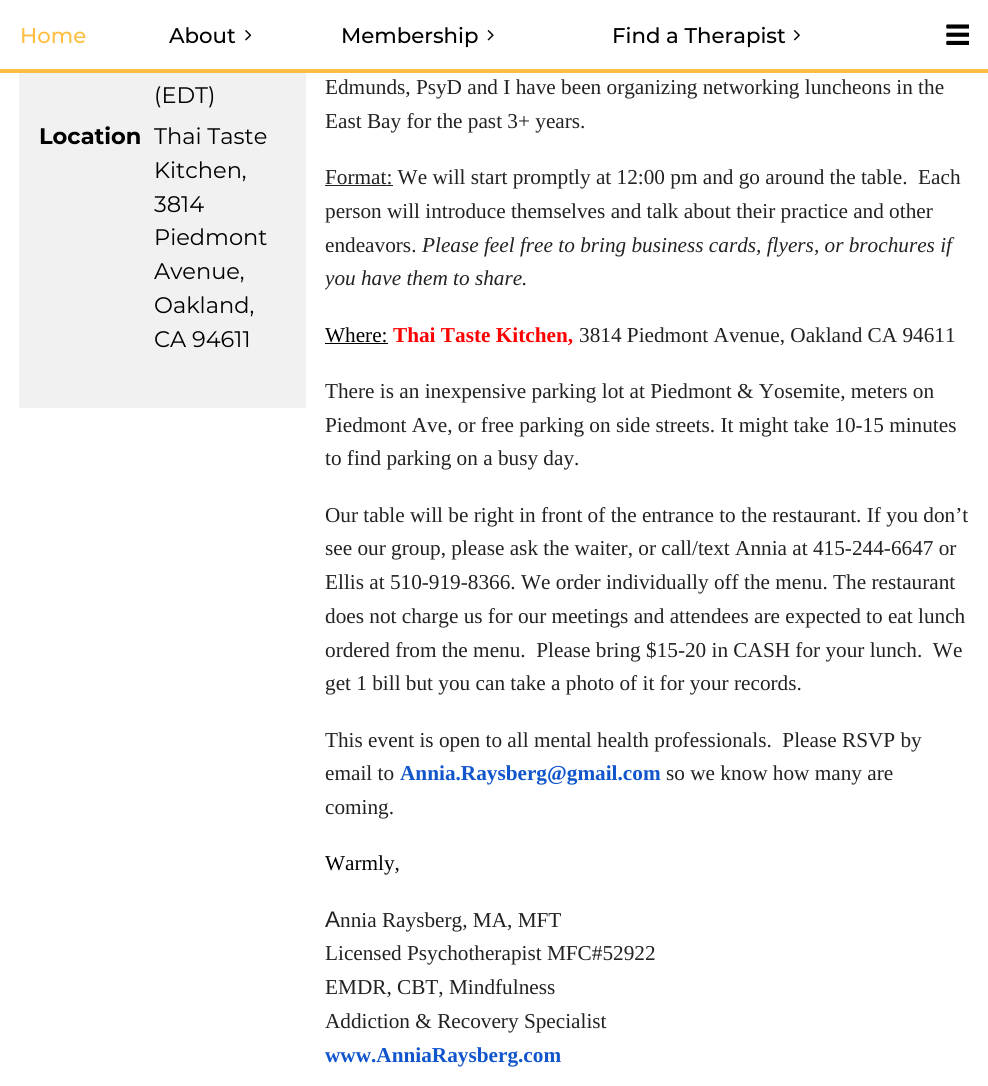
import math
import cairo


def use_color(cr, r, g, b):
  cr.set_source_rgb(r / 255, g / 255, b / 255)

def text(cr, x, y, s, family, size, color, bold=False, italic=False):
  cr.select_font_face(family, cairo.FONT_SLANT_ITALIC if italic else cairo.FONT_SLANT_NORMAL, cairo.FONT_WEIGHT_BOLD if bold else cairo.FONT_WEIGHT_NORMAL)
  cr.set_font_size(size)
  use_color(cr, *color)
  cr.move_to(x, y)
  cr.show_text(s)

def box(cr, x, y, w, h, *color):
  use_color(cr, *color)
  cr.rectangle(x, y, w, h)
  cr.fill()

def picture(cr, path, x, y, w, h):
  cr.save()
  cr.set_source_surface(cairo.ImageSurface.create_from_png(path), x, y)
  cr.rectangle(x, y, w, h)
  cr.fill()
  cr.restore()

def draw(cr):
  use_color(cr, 255, 255, 255)
  cr.paint()
  box(cr, 0, 69, 988, 4, 255, 190, 65)
  picture(cr, "img_01.png", 245, 30, 7, 11)
  picture(cr, "img_02.png", 487, 30, 7, 11)
  picture(cr, "img_03.png", 793, 30, 7, 11)
  picture(cr, "img_04.png", 946, 24, 23, 21)
  box(cr, 19, 73, 287, 335, 241, 241, 241)
  box(cr, 325, 185, 68, 1, 34, 34, 34)
  box(cr, 325, 343, 63, 1, 0, 0, 0)
  text(cr, 20, 43, "Home", "Montserrat Medium", 21.25, (255, 190, 65))
  text(cr, 169, 43, "About", "Montserrat Medium", 21.25, (0, 0, 0))
  text(cr, 341, 43, "Membership", "Montserrat Medium", 21.25, (0, 0, 0))
  text(cr, 612, 43, "Find a Therapist", "Montserrat Medium", 21.25, (0, 0, 0))
  text(cr, 154, 103, "(EDT)", "Montserrat", 22.5, (0, 0, 0))
  text(cr, 39, 144, "Location", "Montserrat", 22.5, (0, 0, 0), bold=True)
  text(cr, 154, 144, "Thai Taste", "Montserrat", 22.5, (0, 0, 0))
  text(cr, 154, 178, "Kitchen,", "Montserrat", 22.5, (0, 0, 0))
  text(cr, 154, 212, "3814", "Montserrat", 22.5, (0, 0, 0))
  text(cr, 154, 245, "Piedmont", "Montserrat", 22.5, (0, 0, 0))
  text(cr, 154, 279, "Avenue,", "Montserrat", 22.5, (0, 0, 0))
  text(cr, 154, 313, "Oakland,", "Montserrat", 22.5, (0, 0, 0))
  text(cr, 154, 347, "CA 94611", "Montserrat", 22.5, (0, 0, 0))
  text(cr, 325, 94, "Edmunds, PsyD and I have been organizing networking luncheons in the", "Liberation Serif", 21.25, (34, 34, 34))
  text(cr, 325, 128, "East Bay for the past 3+ years.", "Liberation Serif", 21.25, (34, 34, 34))
  text(cr, 325, 184, "Format: We will start promptly at 12:00 pm and go around the table.  Each", "Liberation Serif", 21.25, (34, 34, 34))
  text(cr, 325, 218, "person will introduce themselves and talk about their practice and other", "Liberation Serif", 21.25, (34, 34, 34))
  text(cr, 325, 252, "endeavors.", "Liberation Serif", 21.25, (34, 34, 34))
  text(cr, 422, 252, "Please feel free to bring business cards, flyers, or brochures if", "Liberation Serif", 21.25, (34, 34, 34), italic=True)
  cr.save()
  cr.rectangle(325, 0, 645, 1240)
  cr.clip()
  text(cr, 325, 285, "you have them to share.", "Liberation Serif", 21.25, (34, 34, 34), italic=True)
  cr.restore()
  text(cr, 325, 342, "Where:", "Liberation Serif", 21.25, (0, 0, 0))
  text(cr, 393, 342, "Thai Taste Kitchen,", "Liberation Serif", 21.25, (255, 0, 0), bold=True)
  text(cr, 579, 342, "3814 Piedmont Avenue, Oakland CA 94611", "Liberation Serif", 21.25, (34, 34, 34))
  text(cr, 325, 398, "There is an inexpensive parking lot at Piedmont & Yosemite, meters on", "Liberation Serif", 21.25, (34, 34, 34))
  text(cr, 325, 432, "Piedmont Ave, or free parking on side streets. It might take 10-15 minutes", "Liberation Serif", 21.25, (34, 34, 34))
  text(cr, 325, 465, "to find parking on a busy day.", "Liberation Serif", 21.25, (34, 34, 34))
  text(cr, 325, 522, "Our table will be right in front of the entrance to the restaurant. If you don’t", "Liberation Serif", 21.25, (34, 34, 34))
  text(cr, 325, 555, "see our group, please ask the waiter, or call/text Annia at 415-244-6647 or", "Liberation Serif", 21.25, (34, 34, 34))
  text(cr, 325, 589, "Ellis at 510-919-8366. We order individually off the menu. The restaurant", "Liberation Serif", 21.25, (34, 34, 34))
  text(cr, 325, 623, "does not charge us for our meetings and attendees are expected to eat lunch", "Liberation Serif", 21.25, (34, 34, 34))
  text(cr, 325, 657, "ordered from the menu.  Please bring $15-20 in CASH for your lunch.  We", "Liberation Serif", 21.25, (34, 34, 34))
  text(cr, 325, 690, "get 1 bill but you can take a photo of it for your records.", "Liberation Serif", 21.25, (34, 34, 34))
  text(cr, 325, 747, "This event is open to all mental health professionals.  Please RSVP by", "Liberation Serif", 21.25, (34, 34, 34))
  text(cr, 325, 780, "email to", "Liberation Serif", 21.25, (34, 34, 34))
  text(cr, 400, 780, "Annia.Raysberg@gmail.com", "Liberation Serif", 21.25, (17, 85, 204), bold=True)
  text(cr, 666, 780, "so we know how many are", "Liberation Serif", 21.25, (34, 34, 34))
  text(cr, 325, 814, "coming.", "Liberation Serif", 21.25, (34, 34, 34))
  text(cr, 325, 870, "Warmly,", "Liberation Serif", 21.25, (0, 0, 0))
  text(cr, 325, 927, "A", "Liberation Sans", 22.5, (34, 34, 34))
  text(cr, 340, 927, "nnia Raysberg, MA, MFT", "Liberation Serif", 21.25, (34, 34, 34))
  text(cr, 325, 960, "Licensed Psychotherapist MFC#52922", "Liberation Serif", 21.25, (34, 34, 34))
  text(cr, 325, 994, "EMDR, CBT, Mindfulness", "Liberation Serif", 21.25, (34, 34, 34))
  text(cr, 325, 1028, "Addiction & Recovery Specialist", "Liberation Serif", 21.25, (34, 34, 34))
  text(cr, 325, 1062, "www.AnniaRaysberg.com", "Liberation Serif", 21.25, (17, 85, 204), bold=True)


surface = cairo.ImageSurface(cairo.FORMAT_RGB24, 988, 1086)
cr = cairo.Context(surface)
options = cairo.FontOptions()
options.set_hint_metrics(cairo.HINT_METRICS_OFF)
options.set_hint_style(cairo.HINT_STYLE_NONE)
cr.set_font_options(options)
cr.set_miter_limit(4)
draw(cr)
surface.write_to_png("out.png")
